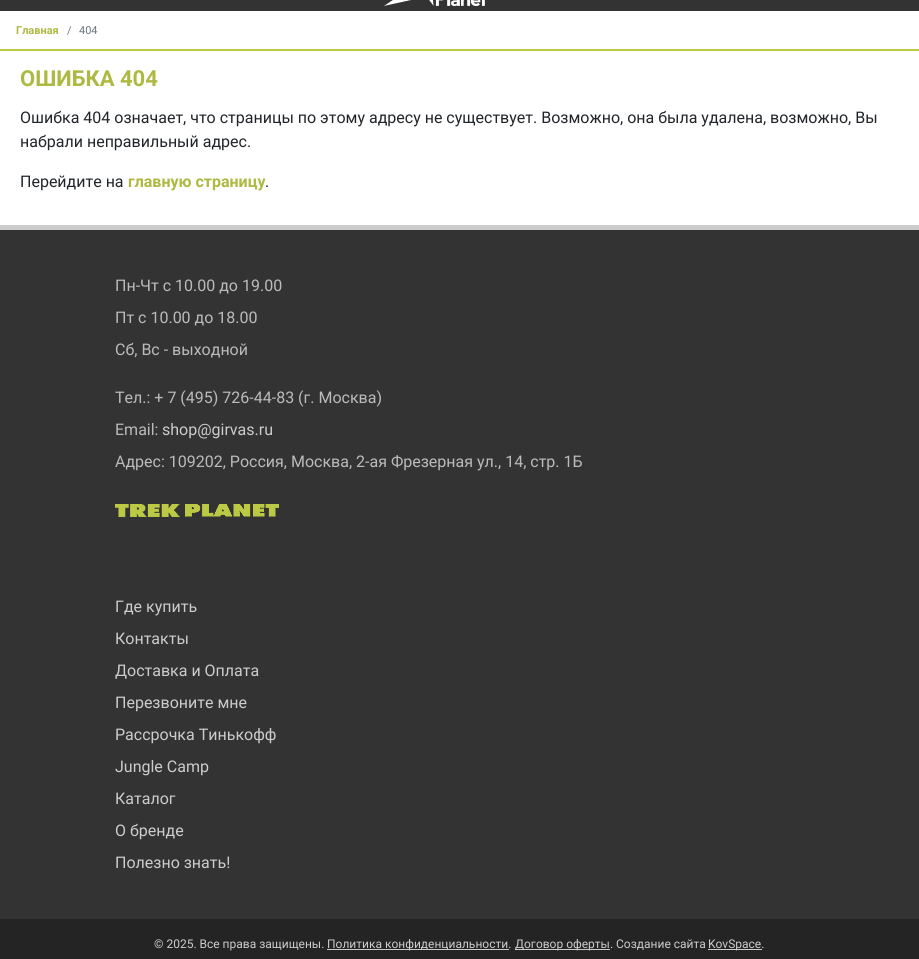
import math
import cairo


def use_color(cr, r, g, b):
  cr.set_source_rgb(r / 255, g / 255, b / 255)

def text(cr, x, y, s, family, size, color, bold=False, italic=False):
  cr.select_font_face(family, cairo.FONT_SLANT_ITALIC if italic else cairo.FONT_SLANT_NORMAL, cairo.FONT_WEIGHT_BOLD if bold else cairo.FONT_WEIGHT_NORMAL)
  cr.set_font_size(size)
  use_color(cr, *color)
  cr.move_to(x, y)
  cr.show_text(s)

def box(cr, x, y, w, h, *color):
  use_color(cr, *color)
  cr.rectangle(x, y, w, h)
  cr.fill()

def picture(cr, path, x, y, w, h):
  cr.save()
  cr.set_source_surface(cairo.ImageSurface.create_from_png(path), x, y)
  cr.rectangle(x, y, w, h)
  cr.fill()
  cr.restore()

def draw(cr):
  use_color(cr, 204, 204, 204)
  cr.paint()
  box(cr, 0, 0, 919, 11, 51, 51, 51)
  picture(cr, "img_01.png", 384, 0, 101, 6)
  box(cr, 0, 11, 919, 38, 255, 255, 255)
  box(cr, 0, 49, 919, 2, 188, 201, 69)
  box(cr, 0, 51, 919, 174, 255, 255, 255)
  box(cr, 0, 230, 919, 689, 51, 51, 51)
  picture(cr, "img_02.png", 115, 504, 164, 13)
  box(cr, 0, 919, 919, 40, 36, 36, 36)
  box(cr, 327, 949, 182, 1, 204, 204, 204)
  box(cr, 515, 949, 95, 1, 204, 204, 204)
  box(cr, 708, 949, 54, 1, 204, 204, 204)
  text(cr, 16, 34, "Главная", "Roboto", 11, (173, 185, 65), bold=True)
  text(cr, 67, 34, "/", "Roboto", 11, (108, 117, 125))
  text(cr, 79, 34, "404", "Roboto", 11, (108, 117, 125))
  text(cr, 20, 86, "ОШИБКА 404", "Roboto", 22, (173, 185, 65), bold=True)
  text(cr, 20, 123, "Ошибка 404 означает, что страницы по этому адресу не существует. Возможно, она была удалена, возможно, Вы", "Roboto", 16, (33, 37, 41))
  text(cr, 20, 147, "набрали неправильный адрес.", "Roboto", 16, (33, 37, 41))
  text(cr, 20, 187, "Перейдите на", "Roboto", 16, (33, 37, 41))
  text(cr, 128, 187, "главную страницу", "Roboto", 16, (173, 185, 65), bold=True)
  text(cr, 265, 187, ".", "Roboto", 16, (33, 37, 41))
  text(cr, 115, 291, "Пн-Чт с 10.00 до 19.00", "Roboto", 16, (187, 187, 187))
  text(cr, 115, 323, "Пт с 10.00 до 18.00", "Roboto", 16, (187, 187, 187))
  text(cr, 115, 355, "Сб, Вс - выходной", "Roboto", 16, (187, 187, 187))
  text(cr, 115, 403, "Тел.: + 7 (495) 726-44-83 (г. Москва)", "Roboto", 16, (187, 187, 187))
  text(cr, 115, 435, "Email:", "Roboto", 16, (187, 187, 187))
  text(cr, 162, 435, "shop@girvas.ru", "Roboto", 16, (204, 204, 204))
  text(cr, 115, 467, "Адрес: 109202, Россия, Москва, 2-ая Фрезерная ул., 14, стр. 1Б", "Roboto", 16, (187, 187, 187))
  text(cr, 115, 612, "Где купить", "Roboto", 16, (204, 204, 204))
  text(cr, 115, 644, "Контакты", "Roboto", 16, (204, 204, 204))
  text(cr, 115, 676, "Доставка и Оплата", "Roboto", 16, (204, 204, 204))
  text(cr, 115, 708, "Перезвоните мне", "Roboto", 16, (204, 204, 204))
  text(cr, 115, 740, "Рассрочка Тинькофф", "Roboto", 16, (204, 204, 204))
  text(cr, 115, 772, "Jungle Camp", "Roboto", 16, (204, 204, 204))
  text(cr, 115, 804, "Каталог", "Roboto", 16, (204, 204, 204))
  text(cr, 115, 836, "О бренде", "Roboto", 16, (204, 204, 204))
  text(cr, 115, 868, "Полезно знать!", "Roboto", 16, (204, 204, 204))
  text(cr, 154, 948, "© 2025. Все права защищены.", "Roboto", 12, (204, 204, 204))
  text(cr, 327, 948, "Политика конфиденциальности.", "Roboto", 12, (204, 204, 204))
  text(cr, 515, 948, "Договор оферты. Создание сайта", "Roboto", 12, (204, 204, 204))
  text(cr, 708, 948, "KovSpace.", "Roboto", 12, (204, 204, 204))


surface = cairo.ImageSurface(cairo.FORMAT_RGB24, 919, 959)
cr = cairo.Context(surface)
options = cairo.FontOptions()
options.set_hint_metrics(cairo.HINT_METRICS_OFF)
options.set_hint_style(cairo.HINT_STYLE_NONE)
cr.set_font_options(options)
cr.set_miter_limit(4)
draw(cr)
surface.write_to_png("out.png")
